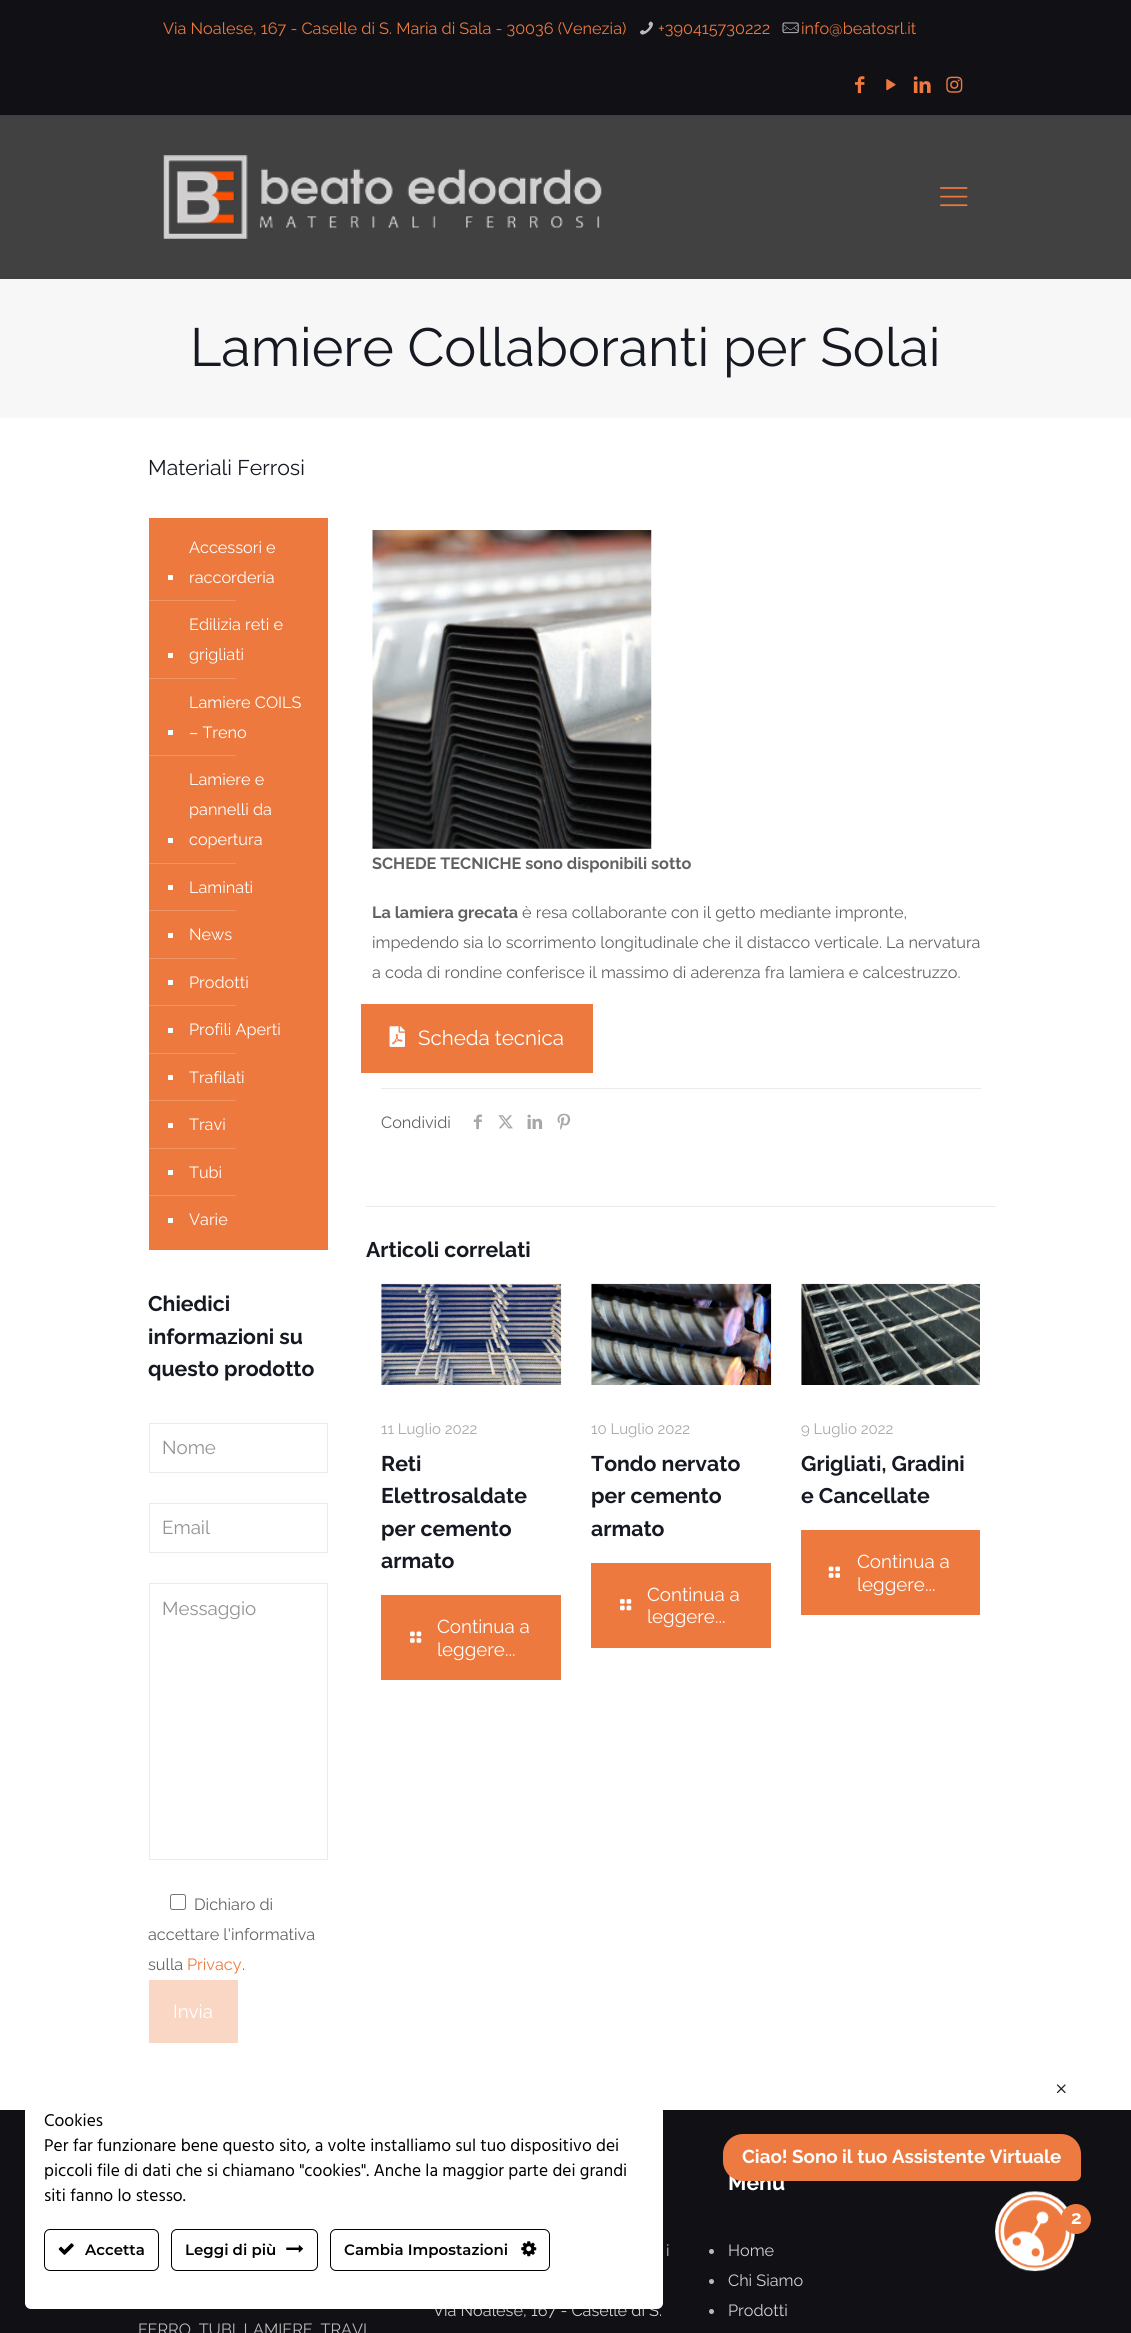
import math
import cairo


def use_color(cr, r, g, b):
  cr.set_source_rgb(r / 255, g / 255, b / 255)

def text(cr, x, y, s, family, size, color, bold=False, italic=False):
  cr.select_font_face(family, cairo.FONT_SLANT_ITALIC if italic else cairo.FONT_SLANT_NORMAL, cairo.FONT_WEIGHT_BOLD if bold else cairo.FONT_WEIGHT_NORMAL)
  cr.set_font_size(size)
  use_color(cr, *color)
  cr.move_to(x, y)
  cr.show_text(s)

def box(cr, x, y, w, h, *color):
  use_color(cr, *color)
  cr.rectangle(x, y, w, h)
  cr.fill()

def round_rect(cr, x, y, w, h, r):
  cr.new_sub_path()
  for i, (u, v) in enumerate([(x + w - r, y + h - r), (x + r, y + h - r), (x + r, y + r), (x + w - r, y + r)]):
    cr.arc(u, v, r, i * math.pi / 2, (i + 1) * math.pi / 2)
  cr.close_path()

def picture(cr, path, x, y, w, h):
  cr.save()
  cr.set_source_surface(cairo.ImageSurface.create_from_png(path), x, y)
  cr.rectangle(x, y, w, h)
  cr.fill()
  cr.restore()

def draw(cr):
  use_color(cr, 255, 255, 255)
  cr.paint()
  box(cr, 0, 115, 1131, 164, 65, 65, 65)
  box(cr, 0, 0, 1131, 115, 16, 16, 21)
  picture(cr, "img_01.png", 640, 21, 13, 14)
  picture(cr, "img_02.png", 782, 22, 17, 12)
  picture(cr, "img_03.png", 855, 76, 10, 18)
  picture(cr, "img_04.png", 886, 79, 10, 12)
  picture(cr, "img_05.png", 913, 76, 18, 17)
  picture(cr, "img_06.png", 946, 76, 17, 17)
  picture(cr, "img_07.png", 163, 155, 439, 84)
  picture(cr, "img_08.png", 940, 187, 28, 20)
  box(cr, 0, 279, 1131, 139, 247, 247, 247)
  box(cr, 149, 518, 179, 732, 237, 121, 62)
  box(cr, 168, 575, 5, 5, 255, 255, 255)
  box(cr, 149, 600, 87, 1, 241, 148, 101)
  box(cr, 168, 653, 5, 5, 255, 255, 255)
  box(cr, 149, 678, 87, 1, 241, 148, 101)
  box(cr, 168, 730, 5, 5, 255, 255, 255)
  box(cr, 149, 755, 87, 1, 241, 148, 101)
  box(cr, 168, 838, 5, 5, 255, 255, 255)
  box(cr, 149, 863, 87, 1, 241, 148, 101)
  box(cr, 168, 885, 5, 5, 255, 255, 255)
  box(cr, 149, 910, 87, 1, 241, 148, 101)
  box(cr, 168, 933, 5, 5, 255, 255, 255)
  box(cr, 149, 958, 87, 1, 241, 148, 101)
  box(cr, 168, 980, 5, 5, 255, 255, 255)
  box(cr, 149, 1005, 87, 1, 241, 148, 101)
  box(cr, 168, 1028, 5, 5, 255, 255, 255)
  box(cr, 149, 1053, 87, 1, 241, 148, 101)
  box(cr, 168, 1075, 5, 5, 255, 255, 255)
  box(cr, 149, 1100, 87, 1, 241, 148, 101)
  box(cr, 168, 1123, 5, 5, 255, 255, 255)
  box(cr, 149, 1148, 87, 1, 241, 148, 101)
  box(cr, 168, 1170, 5, 5, 255, 255, 255)
  box(cr, 149, 1195, 87, 1, 241, 148, 101)
  box(cr, 168, 1218, 5, 5, 255, 255, 255)
  cr.rectangle(149.5, 1423.5, 178, 49)
  use_color(cr, 235, 235, 235)
  cr.set_line_width(1)
  cr.stroke()
  cr.rectangle(149.5, 1503.5, 178, 49)
  cr.stroke()
  cr.rectangle(149.5, 1583.5, 178, 276)
  cr.stroke()
  round_rect(cr, 170.5, 1894.5, 15, 15, 2)
  use_color(cr, 118, 118, 118)
  cr.stroke()
  box(cr, 149, 1980, 89, 63, 250, 215, 197)
  picture(cr, "img_09.png", 372, 530, 280, 319)
  box(cr, 361, 1004, 232, 69, 237, 121, 62)
  picture(cr, "img_10.png", 389, 1026, 16, 21)
  box(cr, 381, 1088, 600, 1, 235, 235, 235)
  picture(cr, "img_11.png", 473, 1114, 9, 16)
  picture(cr, "img_12.png", 498, 1115, 15, 14)
  picture(cr, "img_13.png", 527, 1114, 16, 15)
  picture(cr, "img_14.png", 557, 1113, 14, 17)
  box(cr, 366, 1206, 630, 1, 235, 235, 235)
  picture(cr, "img_15.png", 381, 1283, 181, 102)
  box(cr, 381, 1595, 180, 85, 237, 121, 62)
  picture(cr, "img_16.png", 410, 1631, 12, 12)
  picture(cr, "img_17.png", 591, 1283, 181, 102)
  box(cr, 591, 1563, 180, 85, 237, 121, 62)
  picture(cr, "img_18.png", 620, 1599, 12, 12)
  picture(cr, "img_19.png", 801, 1283, 179, 102)
  box(cr, 801, 1530, 179, 85, 237, 121, 62)
  picture(cr, "img_20.png", 828, 1566, 12, 12)
  box(cr, 0, 2110, 1131, 223, 16, 16, 21)
  use_color(cr, 186, 186, 186)
  cr.arc(711.5, 2251.5, 2.5, 0, 2 * math.pi)
  cr.fill()
  cr.arc(711.5, 2281.5, 2.5, 0, 2 * math.pi)
  cr.fill()
  cr.arc(711.5, 2311.5, 2.5, 0, 2 * math.pi)
  cr.fill()
  picture(cr, "img_24.png", 1056, 2084, 10, 10)
  picture(cr, "img_25.png", 995, 2191, 80, 81)
  use_color(cr, 237, 122, 64)
  cr.arc(1076, 2219, 15, 0, 2 * math.pi)
  cr.fill()
  text(cr, 163, 34, "Via Noalese, 167 - Caselle di S. Maria di Sala - 30036 (Venezia)", "Raleway", 16.25, (237, 121, 62))
  text(cr, 658, 34, "+390415730222", "Raleway", 16.25, (237, 121, 62))
  text(cr, 801, 34, "info@beatosrl.it", "Raleway", 16.25, (237, 121, 62))
  text(cr, 190, 366, "Lamiere Collaboranti per Solai", "Raleway", 53.75, (22, 25, 34))
  text(cr, 148, 475, "Materiali Ferrosi", "Raleway", 21.25, (22, 25, 34))
  text(cr, 189, 553, "Accessori e", "Raleway", 16.25, (255, 255, 255))
  text(cr, 189, 583, "raccorderia", "Raleway", 16.25, (255, 255, 255))
  text(cr, 189, 630, "Edilizia reti e", "Raleway", 16.25, (255, 255, 255))
  text(cr, 189, 660, "grigliati", "Raleway", 16.25, (255, 255, 255))
  text(cr, 189, 708, "Lamiere COILS", "Raleway", 16.25, (255, 255, 255))
  text(cr, 189, 738, "– Treno", "Raleway", 16.25, (255, 255, 255))
  text(cr, 189, 785, "Lamiere e", "Raleway", 16.25, (255, 255, 255))
  text(cr, 189, 815, "pannelli da", "Raleway", 16.25, (255, 255, 255))
  text(cr, 189, 845, "copertura", "Raleway", 16.25, (255, 255, 255))
  text(cr, 189, 893, "Laminati", "Raleway", 16.25, (255, 255, 255))
  text(cr, 189, 940, "News", "Raleway", 16.25, (255, 255, 255))
  text(cr, 189, 988, "Prodotti", "Raleway", 16.25, (255, 255, 255))
  text(cr, 189, 1035, "Profili Aperti", "Raleway", 16.25, (255, 255, 255))
  text(cr, 189, 1083, "Trafilati", "Raleway", 16.25, (255, 255, 255))
  text(cr, 189, 1130, "Travi", "Raleway", 16.25, (255, 255, 255))
  text(cr, 189, 1178, "Tubi", "Raleway", 16.25, (255, 255, 255))
  text(cr, 189, 1225, "Varie", "Raleway", 16.25, (255, 255, 255))
  text(cr, 148, 1311, "Chiedici", "Raleway", 21.25, (22, 25, 34), bold=True)
  text(cr, 148, 1344, "informazioni su", "Raleway", 21.25, (22, 25, 34), bold=True)
  text(cr, 148, 1376, "questo prodotto", "Raleway", 21.25, (22, 25, 34), bold=True)
  text(cr, 162, 1454, "Nome", "Raleway", 18.75, (146, 146, 146))
  text(cr, 162, 1534, "Email", "Raleway", 18.75, (146, 146, 146))
  text(cr, 162, 1615, "Messaggio", "Raleway", 18.75, (146, 146, 146))
  text(cr, 194, 1910, "Dichiaro di", "Raleway", 16.25, (98, 98, 98))
  text(cr, 148, 1940, "accettare l'informativa", "Raleway", 16.25, (98, 98, 98))
  text(cr, 148, 1970, "sulla", "Raleway", 16.25, (98, 98, 98))
  text(cr, 187, 1970, "Privacy", "Raleway", 16.25, (237, 121, 62))
  text(cr, 242, 1970, ".", "Raleway", 16.25, (98, 98, 98))
  text(cr, 173, 2018, "Invia", "Raleway", 18.75, (255, 255, 255))
  text(cr, 372, 869, "SCHEDE TECNICHE sono disponibili sotto", "Raleway", 16.25, (98, 98, 98), bold=True)
  text(cr, 372, 918, "La lamiera grecata", "Raleway", 16.25, (98, 98, 98), bold=True)
  text(cr, 522, 918, "è resa collaborante con il getto mediante impronte,", "Raleway", 16.25, (98, 98, 98))
  text(cr, 372, 948, "impedendo sia lo scorrimento longitudinale che il distacco verticale. La nervatura", "Raleway", 16.25, (98, 98, 98))
  text(cr, 372, 978, "a coda di rondine conferisce il massimo di aderenza fra lamiera e calcestruzzo.", "Raleway", 16.25, (98, 98, 98))
  text(cr, 418, 1045, "Scheda tecnica", "Raleway", 20.5, (255, 255, 255))
  text(cr, 381, 1128, "Condividi", "Raleway", 16.25, (98, 98, 98))
  text(cr, 366, 1257, "Articoli correlati", "Raleway", 21.25, (22, 25, 34), bold=True)
  text(cr, 381, 1434, "11 Luglio 2022", "Raleway", 15, (168, 168, 168))
  text(cr, 381, 1471, "Reti", "Raleway", 21.25, (22, 25, 34), bold=True)
  text(cr, 381, 1503, "Elettrosaldate", "Raleway", 21.25, (22, 25, 34), bold=True)
  text(cr, 381, 1536, "per cemento", "Raleway", 21.25, (22, 25, 34), bold=True)
  text(cr, 381, 1568, "armato", "Raleway", 21.25, (22, 25, 34), bold=True)
  text(cr, 437, 1633, "Continua a", "Raleway", 18.75, (255, 255, 255))
  text(cr, 437, 1656, "leggere...", "Raleway", 18.75, (255, 255, 255))
  text(cr, 591, 1434, "10 Luglio 2022", "Raleway", 15, (168, 168, 168))
  text(cr, 591, 1471, "Tondo nervato", "Raleway", 21.25, (22, 25, 34), bold=True)
  text(cr, 591, 1503, "per cemento", "Raleway", 21.25, (22, 25, 34), bold=True)
  text(cr, 591, 1536, "armato", "Raleway", 21.25, (22, 25, 34), bold=True)
  text(cr, 647, 1601, "Continua a", "Raleway", 18.75, (255, 255, 255))
  text(cr, 647, 1623, "leggere...", "Raleway", 18.75, (255, 255, 255))
  text(cr, 801, 1434, "9 Luglio 2022", "Raleway", 15, (168, 168, 168))
  text(cr, 801, 1471, "Grigliati, Gradini", "Raleway", 21.25, (22, 25, 34), bold=True)
  text(cr, 801, 1503, "e Cancellate", "Raleway", 21.25, (22, 25, 34), bold=True)
  text(cr, 857, 1568, "Continua a", "Raleway", 18.75, (255, 255, 255))
  text(cr, 857, 1591, "leggere...", "Raleway", 18.75, (255, 255, 255))
  text(cr, 666, 2256, "i", "Raleway", 16.25, (186, 186, 186))
  text(cr, 433, 2316, "Via Noalese, 167 - Caselle di S.", "Raleway", 16.25, (209, 209, 209))
  text(cr, 728, 2190, "Menu", "Raleway", 21.25, (255, 255, 255), bold=True)
  text(cr, 728, 2256, "Home", "Raleway", 16.25, (209, 209, 209))
  text(cr, 728, 2286, "Chi Siamo", "Raleway", 16.25, (209, 209, 209))
  text(cr, 728, 2316, "Prodotti", "Raleway", 16.25, (209, 209, 209))
  text(cr, 138, 2335, "FERRO, TUBI, LAMIERE, TRAVI", "Raleway", 16.25, (186, 186, 186))
  use_color(cr, 255, 255, 255)
  round_rect(cr, 25, 2091, 638, 218, 6)
  cr.fill()
  text(cr, 44, 2126, "Cookies", "Hind", 17.5, (0, 0, 0))
  text(cr, 44, 2151, "Per far funzionare bene questo sito, a volte installiamo sul tuo dispositivo dei", "Hind", 17.5, (0, 0, 0))
  text(cr, 44, 2176, "piccoli file di dati che si chiamano \"cookies\". Anche la maggior parte dei grandi", "Hind", 17.5, (0, 0, 0))
  text(cr, 44, 2201, "siti fanno lo stesso.", "Hind", 17.5, (0, 0, 0))
  round_rect(cr, 44.5, 2229.5, 114, 41, 5.5)
  cr.stroke()
  picture(cr, "img_21.png", 58, 2243, 16, 12)
  text(cr, 85, 2255, "Accetta", "Montserrat SemiBold", 15, (0, 0, 0))
  round_rect(cr, 171.5, 2229.5, 146, 41, 5.5)
  cr.stroke()
  text(cr, 185, 2255, "Leggi di più", "Montserrat SemiBold", 15, (0, 0, 0))
  picture(cr, "img_22.png", 286, 2245, 18, 8)
  round_rect(cr, 330.5, 2229.5, 219, 41, 5.5)
  cr.stroke()
  text(cr, 344, 2255, "Cambia Impostazioni", "Montserrat SemiBold", 15, (0, 0, 0))
  picture(cr, "img_23.png", 521, 2241, 16, 16)
  use_color(cr, 237, 122, 64)
  cr.new_path()
  cr.move_to(743, 2134)
  cr.line_to(1061, 2134)
  cr.curve_to(1072, 2134, 1081, 2143, 1081, 2154)
  cr.line_to(1081, 2175)
  cr.curve_to(1081, 2178.5, 1078.5, 2181, 1075, 2181)
  cr.line_to(743, 2181)
  cr.curve_to(732, 2181, 723, 2172, 723, 2161)
  cr.line_to(723, 2154)
  cr.curve_to(723, 2143, 732, 2134, 743, 2134)
  cr.close_path()
  cr.fill()
  text(cr, 742, 2163, "Ciao! Sono il tuo Assistente Virtuale", "Raleway", 18.75, (255, 255, 255), bold=True)
  text(cr, 1071, 2224, "2", "Raleway", 18.75, (255, 255, 255), bold=True)


surface = cairo.ImageSurface(cairo.FORMAT_RGB24, 1131, 2333)
cr = cairo.Context(surface)
options = cairo.FontOptions()
options.set_hint_metrics(cairo.HINT_METRICS_OFF)
options.set_hint_style(cairo.HINT_STYLE_NONE)
cr.set_font_options(options)
cr.set_miter_limit(4)
draw(cr)
surface.write_to_png("out.png")
